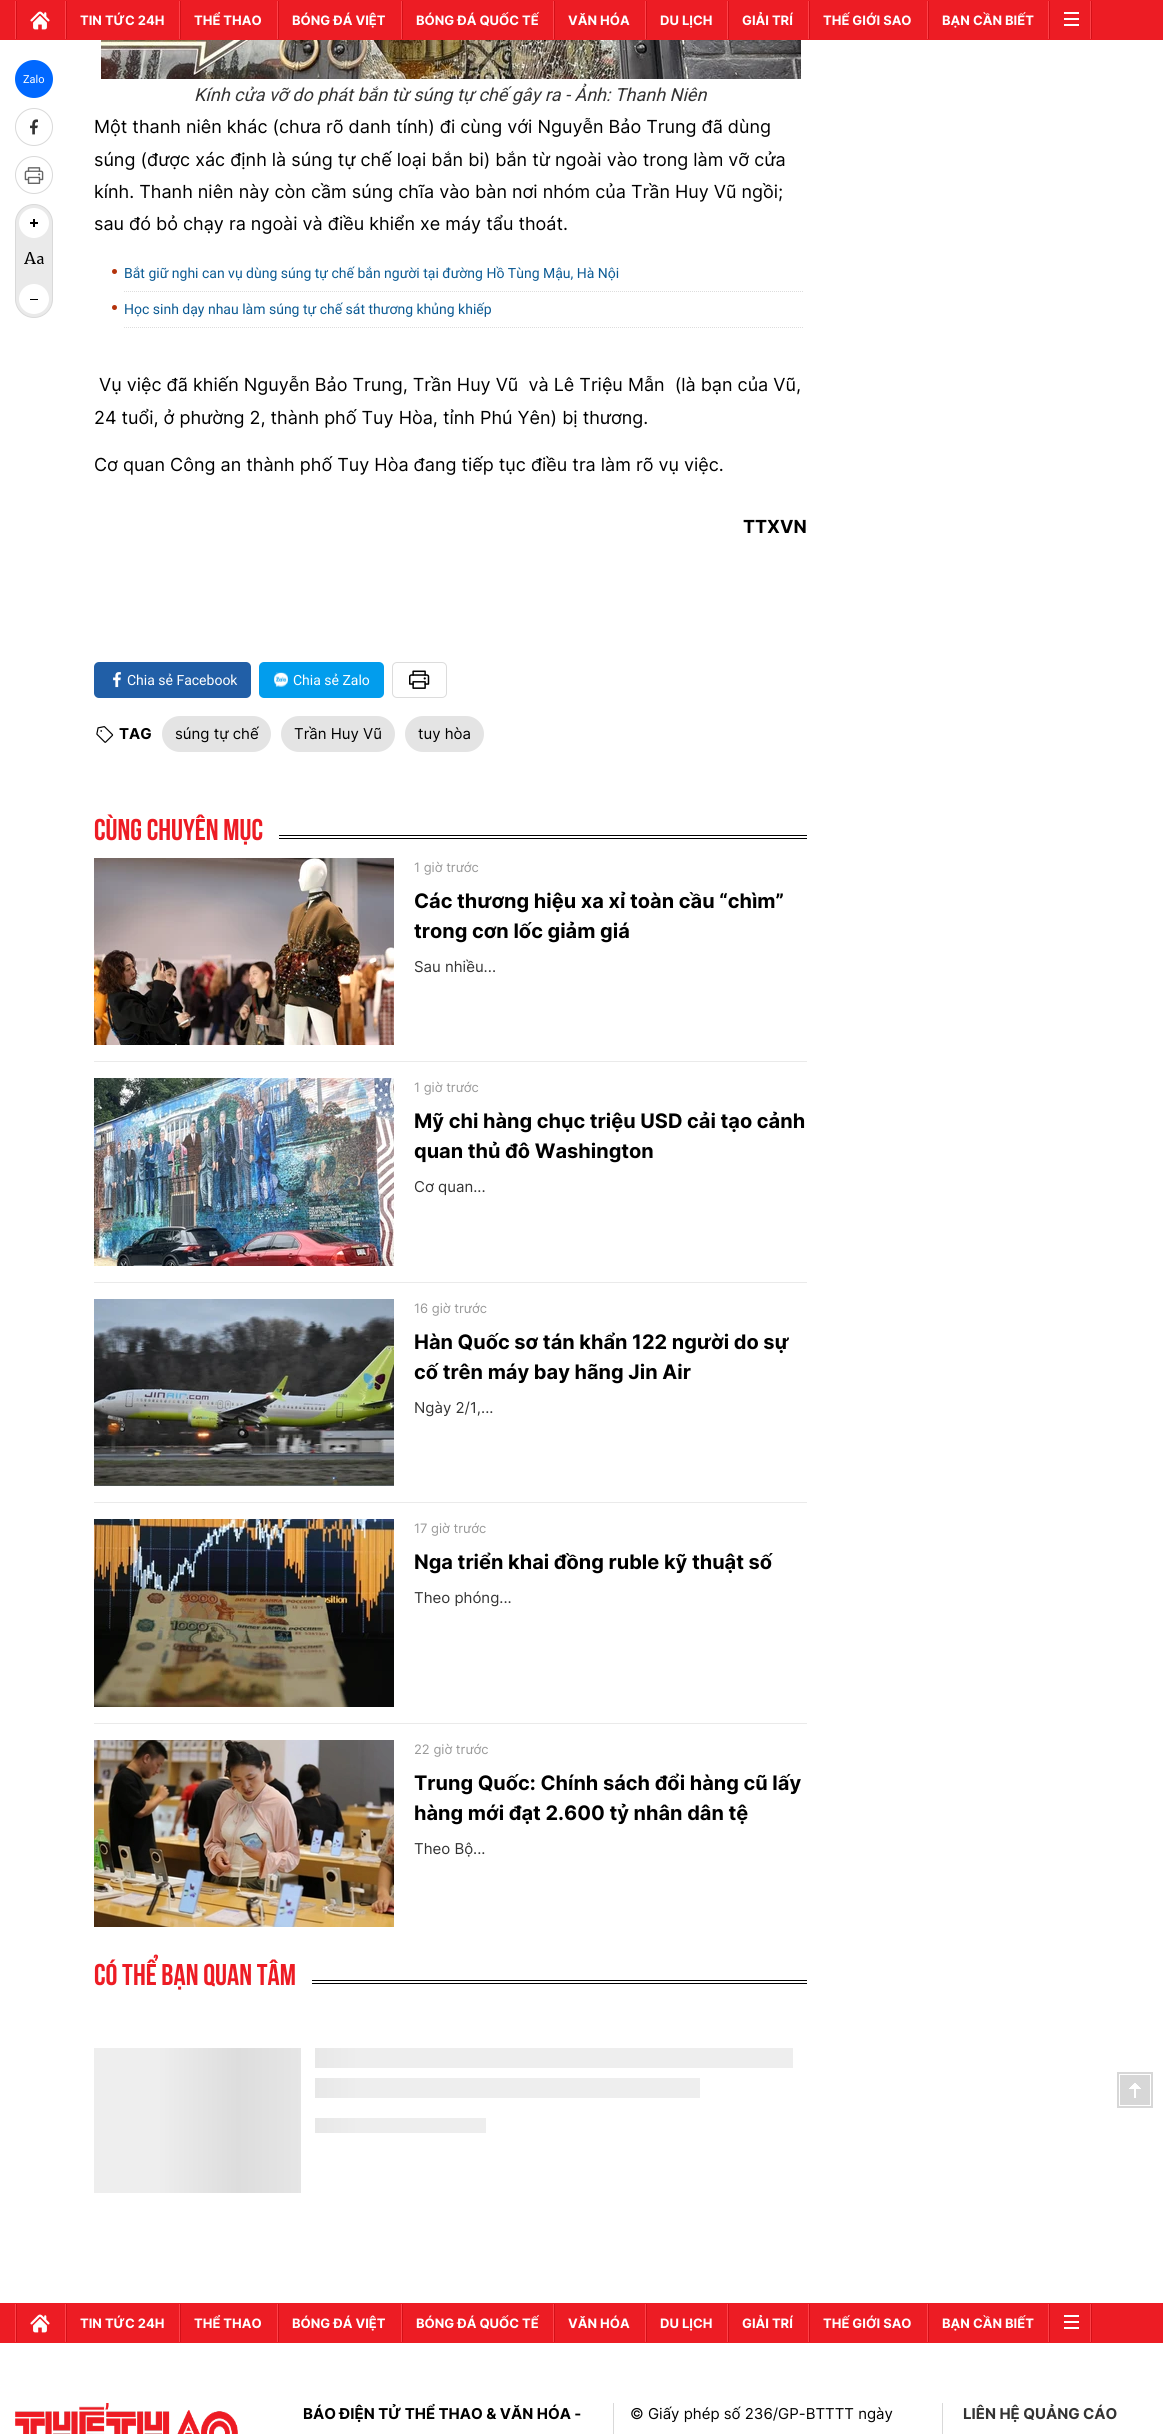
import math
import cairo


def use_color(cr, r, g, b):
  cr.set_source_rgb(r / 255, g / 255, b / 255)

def text(cr, x, y, s, family, size, color, bold=False, italic=False):
  cr.select_font_face(family, cairo.FONT_SLANT_ITALIC if italic else cairo.FONT_SLANT_NORMAL, cairo.FONT_WEIGHT_BOLD if bold else cairo.FONT_WEIGHT_NORMAL)
  cr.set_font_size(size)
  use_color(cr, *color)
  cr.move_to(x, y)
  cr.show_text(s)

def box(cr, x, y, w, h, *color):
  use_color(cr, *color)
  cr.rectangle(x, y, w, h)
  cr.fill()

def round_rect(cr, x, y, w, h, r):
  cr.new_sub_path()
  for i, (u, v) in enumerate([(x + w - r, y + h - r), (x + r, y + h - r), (x + r, y + r), (x + w - r, y + r)]):
    cr.arc(u, v, r, i * math.pi / 2, (i + 1) * math.pi / 2)
  cr.close_path()

def picture(cr, path, x, y, w, h):
  cr.save()
  cr.set_source_surface(cairo.ImageSurface.create_from_png(path), x, y)
  cr.rectangle(x, y, w, h)
  cr.fill()
  cr.restore()

def draw(cr):
  use_color(cr, 255, 255, 255)
  cr.paint()
  box(cr, 0, 0, 1163, 40, 237, 28, 36)
  box(cr, 15, 1, 1, 38, 255, 65, 72)
  box(cr, 16, 1, 1, 38, 211, 16, 24)
  picture(cr, "img_01.png", 30, 11, 20, 19)
  box(cr, 65, 1, 1, 38, 255, 65, 72)
  box(cr, 66, 1, 1, 38, 211, 16, 24)
  box(cr, 179, 1, 1, 38, 255, 65, 72)
  box(cr, 180, 1, 1, 38, 211, 16, 24)
  box(cr, 277, 1, 1, 38, 255, 65, 72)
  box(cr, 278, 1, 1, 38, 211, 16, 24)
  box(cr, 401, 1, 1, 38, 255, 65, 72)
  box(cr, 402, 1, 1, 38, 211, 16, 24)
  box(cr, 553, 1, 1, 38, 255, 65, 72)
  box(cr, 554, 1, 1, 38, 211, 16, 24)
  box(cr, 645, 1, 1, 38, 255, 65, 72)
  box(cr, 646, 1, 1, 38, 211, 16, 24)
  box(cr, 727, 1, 1, 38, 255, 65, 72)
  box(cr, 728, 1, 1, 38, 211, 16, 24)
  box(cr, 808, 1, 1, 38, 255, 65, 72)
  box(cr, 809, 1, 1, 38, 211, 16, 24)
  box(cr, 927, 1, 1, 38, 255, 65, 72)
  box(cr, 928, 1, 1, 38, 211, 16, 24)
  box(cr, 1048, 1, 1, 38, 255, 65, 72)
  box(cr, 1049, 1, 1, 38, 211, 16, 24)
  box(cr, 1064, 12, 15, 2, 255, 255, 255)
  box(cr, 1064, 18, 15, 2, 255, 255, 255)
  box(cr, 1064, 24, 15, 2, 255, 255, 255)
  box(cr, 1090, 1, 1, 38, 255, 65, 72)
  box(cr, 1091, 1, 1, 38, 211, 16, 24)
  use_color(cr, 0, 104, 255)
  cr.arc(34, 79, 19, 0, 2 * math.pi)
  cr.fill()
  cr.arc(34, 127, 18.5, 0, 2 * math.pi)
  use_color(cr, 217, 217, 217)
  cr.set_line_width(1)
  cr.stroke()
  picture(cr, "img_02.png", 30, 119, 8, 16)
  cr.arc(34, 175, 18.5, 0, 2 * math.pi)
  cr.stroke()
  picture(cr, "img_03.png", 24, 167, 20, 17)
  use_color(cr, 234, 234, 234)
  round_rect(cr, 15.5, 204.5, 37, 113, 18.5)
  cr.fill_preserve()
  use_color(cr, 217, 217, 217)
  cr.stroke()
  use_color(cr, 255, 255, 255)
  cr.arc(34, 223, 15, 0, 2 * math.pi)
  cr.fill()
  box(cr, 30, 222, 8, 2, 0, 0, 0)
  box(cr, 33, 219, 2, 8, 0, 0, 0)
  picture(cr, "img_04.png", 24, 252, 20, 12)
  use_color(cr, 255, 255, 255)
  cr.arc(34, 299, 15, 0, 2 * math.pi)
  cr.fill()
  box(cr, 30, 299, 8, 1, 0, 0, 0)
  picture(cr, "img_05.png", 101, 40, 700, 39)
  use_color(cr, 180, 51, 12)
  cr.arc(114.5, 271.5, 2.5, 0, 2 * math.pi)
  cr.fill()
  cr.new_path()
  cr.move_to(124, 291.5)
  cr.line_to(804, 291.5)
  use_color(cr, 221, 221, 221)
  cr.set_dash([1, 1])
  cr.stroke()
  use_color(cr, 180, 51, 12)
  cr.arc(114.5, 307.5, 2.5, 0, 2 * math.pi)
  cr.fill()
  cr.new_path()
  cr.move_to(124, 327.5)
  cr.line_to(804, 327.5)
  use_color(cr, 221, 221, 221)
  cr.stroke()
  use_color(cr, 33, 95, 167)
  round_rect(cr, 94, 662, 157, 36, 5)
  cr.fill()
  picture(cr, "img_06.png", 113, 672, 8, 16)
  use_color(cr, 2, 157, 237)
  round_rect(cr, 259, 662, 125, 36, 5)
  cr.fill()
  picture(cr, "img_07.png", 274, 672, 14, 15)
  round_rect(cr, 392.5, 662.5, 54, 35, 4.5)
  use_color(cr, 220, 220, 220)
  cr.set_dash([])
  cr.stroke()
  picture(cr, "img_08.png", 409, 670, 21, 19)
  picture(cr, "img_09.png", 96, 726, 18, 17)
  use_color(cr, 228, 228, 228)
  round_rect(cr, 162, 716, 109, 36, 18)
  cr.fill()
  round_rect(cr, 281, 716, 114, 36, 18)
  cr.fill()
  round_rect(cr, 405, 716, 79, 36, 18)
  cr.fill()
  box(cr, 279, 835, 528, 1, 0, 0, 0)
  box(cr, 279, 838, 528, 1, 0, 0, 0)
  box(cr, 94, 1061, 713, 1, 234, 234, 234)
  picture(cr, "img_10.png", 94, 858, 300, 187)
  box(cr, 94, 1282, 713, 1, 234, 234, 234)
  picture(cr, "img_11.png", 94, 1078, 300, 188)
  box(cr, 94, 1502, 713, 1, 234, 234, 234)
  picture(cr, "img_12.png", 94, 1299, 300, 187)
  box(cr, 94, 1723, 713, 1, 234, 234, 234)
  picture(cr, "img_13.png", 94, 1519, 300, 188)
  picture(cr, "img_14.png", 94, 1740, 300, 187)
  box(cr, 312, 1980, 495, 1, 0, 0, 0)
  box(cr, 312, 1983, 495, 1, 0, 0, 0)
  gradient = cairo.LinearGradient(94, 2148, 894, 2148)
  gradient.add_color_stop_rgba(0.08, 0.933, 0.933, 0.933, 1)
  gradient.add_color_stop_rgba(0.18, 0.867, 0.867, 0.867, 1)
  gradient.add_color_stop_rgba(0.33, 0.933, 0.933, 0.933, 1)
  cr.set_source(gradient)
  cr.rectangle(94, 2048, 699, 145)
  cr.fill()
  box(cr, 301, 2048, 14, 20, 255, 255, 255)
  box(cr, 301, 2068, 492, 10, 255, 255, 255)
  box(cr, 301, 2078, 14, 20, 255, 255, 255)
  box(cr, 700, 2078, 93, 20, 255, 255, 255)
  box(cr, 301, 2098, 492, 20, 255, 255, 255)
  box(cr, 301, 2118, 14, 15, 255, 255, 255)
  box(cr, 486, 2118, 307, 15, 255, 255, 255)
  box(cr, 301, 2133, 492, 60, 255, 255, 255)
  box(cr, 0, 2303, 1163, 40, 237, 28, 36)
  box(cr, 15, 2304, 1, 38, 255, 65, 72)
  box(cr, 16, 2304, 1, 38, 211, 16, 24)
  picture(cr, "img_01.png", 30, 2314, 20, 19)
  box(cr, 65, 2304, 1, 38, 255, 65, 72)
  box(cr, 66, 2304, 1, 38, 211, 16, 24)
  box(cr, 179, 2304, 1, 38, 255, 65, 72)
  box(cr, 180, 2304, 1, 38, 211, 16, 24)
  box(cr, 277, 2304, 1, 38, 255, 65, 72)
  box(cr, 278, 2304, 1, 38, 211, 16, 24)
  box(cr, 401, 2304, 1, 38, 255, 65, 72)
  box(cr, 402, 2304, 1, 38, 211, 16, 24)
  box(cr, 553, 2304, 1, 38, 255, 65, 72)
  box(cr, 554, 2304, 1, 38, 211, 16, 24)
  box(cr, 645, 2304, 1, 38, 255, 65, 72)
  box(cr, 646, 2304, 1, 38, 211, 16, 24)
  box(cr, 727, 2304, 1, 38, 255, 65, 72)
  box(cr, 728, 2304, 1, 38, 211, 16, 24)
  box(cr, 808, 2304, 1, 38, 255, 65, 72)
  box(cr, 809, 2304, 1, 38, 211, 16, 24)
  box(cr, 927, 2304, 1, 38, 255, 65, 72)
  box(cr, 928, 2304, 1, 38, 211, 16, 24)
  box(cr, 1048, 2304, 1, 38, 255, 65, 72)
  box(cr, 1049, 2304, 1, 38, 211, 16, 24)
  box(cr, 1064, 2315, 15, 2, 255, 255, 255)
  box(cr, 1064, 2321, 15, 2, 255, 255, 255)
  box(cr, 1064, 2327, 15, 2, 255, 255, 255)
  box(cr, 1090, 2304, 1, 38, 255, 65, 72)
  box(cr, 1091, 2304, 1, 38, 211, 16, 24)
  picture(cr, "img_15.png", 15, 2403, 223, 31)
  box(cr, 942, 2403, 1, 31, 217, 217, 217)
  box(cr, 613, 2403, 1, 31, 217, 217, 217)
  picture(cr, "img_16.png", 1117, 2072, 36, 36)
  text(cr, 80, 25, "TIN TỨC 24H", "Inter", 13, (255, 255, 255), bold=True)
  text(cr, 194, 25, "THỂ THAO", "Inter", 13, (255, 255, 255), bold=True)
  text(cr, 292, 25, "BÓNG ĐÁ VIỆT", "Inter", 13, (255, 255, 255), bold=True)
  text(cr, 416, 25, "BÓNG ĐÁ QUỐC TẾ", "Inter", 13, (255, 255, 255), bold=True)
  text(cr, 568, 25, "VĂN HÓA", "Inter", 13, (255, 255, 255), bold=True)
  text(cr, 660, 25, "DU LỊCH", "Inter", 13, (255, 255, 255), bold=True)
  text(cr, 742, 25, "GIẢI TRÍ", "Inter", 13, (255, 255, 255), bold=True)
  text(cr, 823, 25, "THẾ GIỚI SAO", "Inter", 13, (255, 255, 255), bold=True)
  text(cr, 942, 25, "BẠN CẦN BIẾT", "Inter", 13, (255, 255, 255), bold=True)
  text(cr, 23, 83, "Zalo", "Roboto", 11, (255, 255, 255))
  text(cr, 194, 101, "Kính cửa vỡ do phát bắn từ súng tự chế gây ra - Ảnh: Thanh Niên", "Roboto", 18, (51, 51, 51), italic=True)
  text(cr, 94, 133, "Một thanh niên khác (chưa rõ danh tính) đi cùng với Nguyễn Bảo Trung đã dùng", "Inter", 18, (0, 0, 0))
  text(cr, 94, 166, "súng (được xác định là súng tự chế loại bắn bi) bắn từ ngoài vào trong làm vỡ cửa", "Inter", 18, (0, 0, 0))
  text(cr, 94, 198, "kính. Thanh niên này còn cầm súng chĩa vào bàn nơi nhóm của Trần Huy Vũ ngồi;", "Inter", 18, (0, 0, 0))
  text(cr, 94, 230, "sau đó bỏ chạy ra ngoài và điều khiển xe máy tẩu thoát.", "Inter", 18, (0, 0, 0))
  text(cr, 124, 278, "Bắt giữ nghi can vụ dùng súng tự chế bắn người tại đường Hồ Tùng Mậu, Hà Nội", "Roboto", 14, (12, 91, 148))
  text(cr, 124, 314, "Học sinh dạy nhau làm súng tự chế sát thương khủng khiếp", "Roboto", 14, (12, 91, 148))
  text(cr, 99, 391, "Vụ việc đã khiến Nguyễn Bảo Trung, Trần Huy Vũ  và Lê Triệu Mẫn  (là bạn của Vũ,", "Inter", 18, (0, 0, 0))
  text(cr, 94, 424, "24 tuổi, ở phường 2, thành phố Tuy Hòa, tỉnh Phú Yên) bị thương.", "Inter", 18, (0, 0, 0))
  text(cr, 94, 471, "Cơ quan Công an thành phố Tuy Hòa đang tiếp tục điều tra làm rõ vụ việc.", "Inter", 18, (0, 0, 0))
  text(cr, 743, 533, "TTXVN", "Inter", 18, (0, 0, 0), bold=True)
  text(cr, 127, 685, "Chia sẻ Facebook", "Roboto", 14, (255, 255, 255))
  text(cr, 293, 685, "Chia sẻ Zalo", "Roboto", 14, (255, 255, 255))
  text(cr, 119, 739, "TAG", "Inter", 15, (0, 0, 0), bold=True)
  text(cr, 175, 739, "súng tự chế", "Inter", 15, (0, 0, 0))
  text(cr, 294, 739, "Trần Huy Vũ", "Inter", 15, (0, 0, 0))
  text(cr, 418, 739, "tuy hòa", "Inter", 15, (0, 0, 0))
  text(cr, 94, 840, "Cùng chuyên mục", "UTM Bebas", 30, (237, 28, 36))
  text(cr, 414, 872, "1 giờ trước", "Inter", 13, (153, 153, 153))
  text(cr, 414, 908, "Các thương hiệu xa xỉ toàn cầu “chìm”", "Inter", 20, (0, 0, 0), bold=True)
  text(cr, 414, 938, "trong cơn lốc giảm giá", "Inter", 20, (0, 0, 0), bold=True)
  text(cr, 414, 972, "Sau nhiều...", "Inter", 15, (51, 51, 51))
  text(cr, 414, 1092, "1 giờ trước", "Inter", 13, (153, 153, 153))
  text(cr, 414, 1128, "Mỹ chi hàng chục triệu USD cải tạo cảnh", "Inter", 20, (0, 0, 0), bold=True)
  text(cr, 414, 1158, "quan thủ đô Washington", "Inter", 20, (0, 0, 0), bold=True)
  text(cr, 414, 1192, "Cơ quan...", "Inter", 15, (51, 51, 51))
  text(cr, 414, 1313, "16 giờ trước", "Inter", 13, (153, 153, 153))
  text(cr, 414, 1349, "Hàn Quốc sơ tán khẩn 122 người do sự", "Inter", 20, (0, 0, 0), bold=True)
  text(cr, 414, 1379, "cố trên máy bay hãng Jin Air", "Inter", 20, (0, 0, 0), bold=True)
  text(cr, 414, 1413, "Ngày 2/1,...", "Inter", 15, (51, 51, 51))
  text(cr, 414, 1533, "17 giờ trước", "Inter", 13, (153, 153, 153))
  text(cr, 414, 1569, "Nga triển khai đồng ruble kỹ thuật số", "Inter", 20, (0, 0, 0), bold=True)
  text(cr, 414, 1603, "Theo phóng...", "Inter", 15, (51, 51, 51))
  text(cr, 414, 1754, "22 giờ trước", "Inter", 13, (153, 153, 153))
  text(cr, 414, 1790, "Trung Quốc: Chính sách đổi hàng cũ lấy", "Inter", 20, (0, 0, 0), bold=True)
  text(cr, 414, 1820, "hàng mới đạt 2.600 tỷ nhân dân tệ", "Inter", 20, (0, 0, 0), bold=True)
  text(cr, 414, 1854, "Theo Bộ...", "Inter", 15, (51, 51, 51))
  text(cr, 94, 1985, "Có thể bạn quan tâm", "UTM Bebas", 30, (237, 28, 36))
  text(cr, 80, 2328, "TIN TỨC 24H", "Inter", 13, (255, 255, 255), bold=True)
  text(cr, 194, 2328, "THỂ THAO", "Inter", 13, (255, 255, 255), bold=True)
  text(cr, 292, 2328, "BÓNG ĐÁ VIỆT", "Inter", 13, (255, 255, 255), bold=True)
  text(cr, 416, 2328, "BÓNG ĐÁ QUỐC TẾ", "Inter", 13, (255, 255, 255), bold=True)
  text(cr, 568, 2328, "VĂN HÓA", "Inter", 13, (255, 255, 255), bold=True)
  text(cr, 660, 2328, "DU LỊCH", "Inter", 13, (255, 255, 255), bold=True)
  text(cr, 742, 2328, "GIẢI TRÍ", "Inter", 13, (255, 255, 255), bold=True)
  text(cr, 823, 2328, "THẾ GIỚI SAO", "Inter", 13, (255, 255, 255), bold=True)
  text(cr, 942, 2328, "BẠN CẦN BIẾT", "Inter", 13, (255, 255, 255), bold=True)
  text(cr, 303, 2419, "BÁO ĐIỆN TỬ THỂ THAO & VĂN HÓA -", "Inter", 15, (0, 0, 0), bold=True)
  text(cr, 630, 2419, "© Giấy phép số 236/GP-BTTTT ngày", "Inter", 15, (0, 0, 0))
  text(cr, 963, 2419, "LIÊN HỆ QUẢNG CÁO", "Inter", 15, (51, 51, 51), bold=True)


surface = cairo.ImageSurface(cairo.FORMAT_RGB24, 1163, 2434)
cr = cairo.Context(surface)
options = cairo.FontOptions()
options.set_hint_metrics(cairo.HINT_METRICS_OFF)
options.set_hint_style(cairo.HINT_STYLE_NONE)
cr.set_font_options(options)
cr.set_miter_limit(4)
draw(cr)
surface.write_to_png("out.png")
